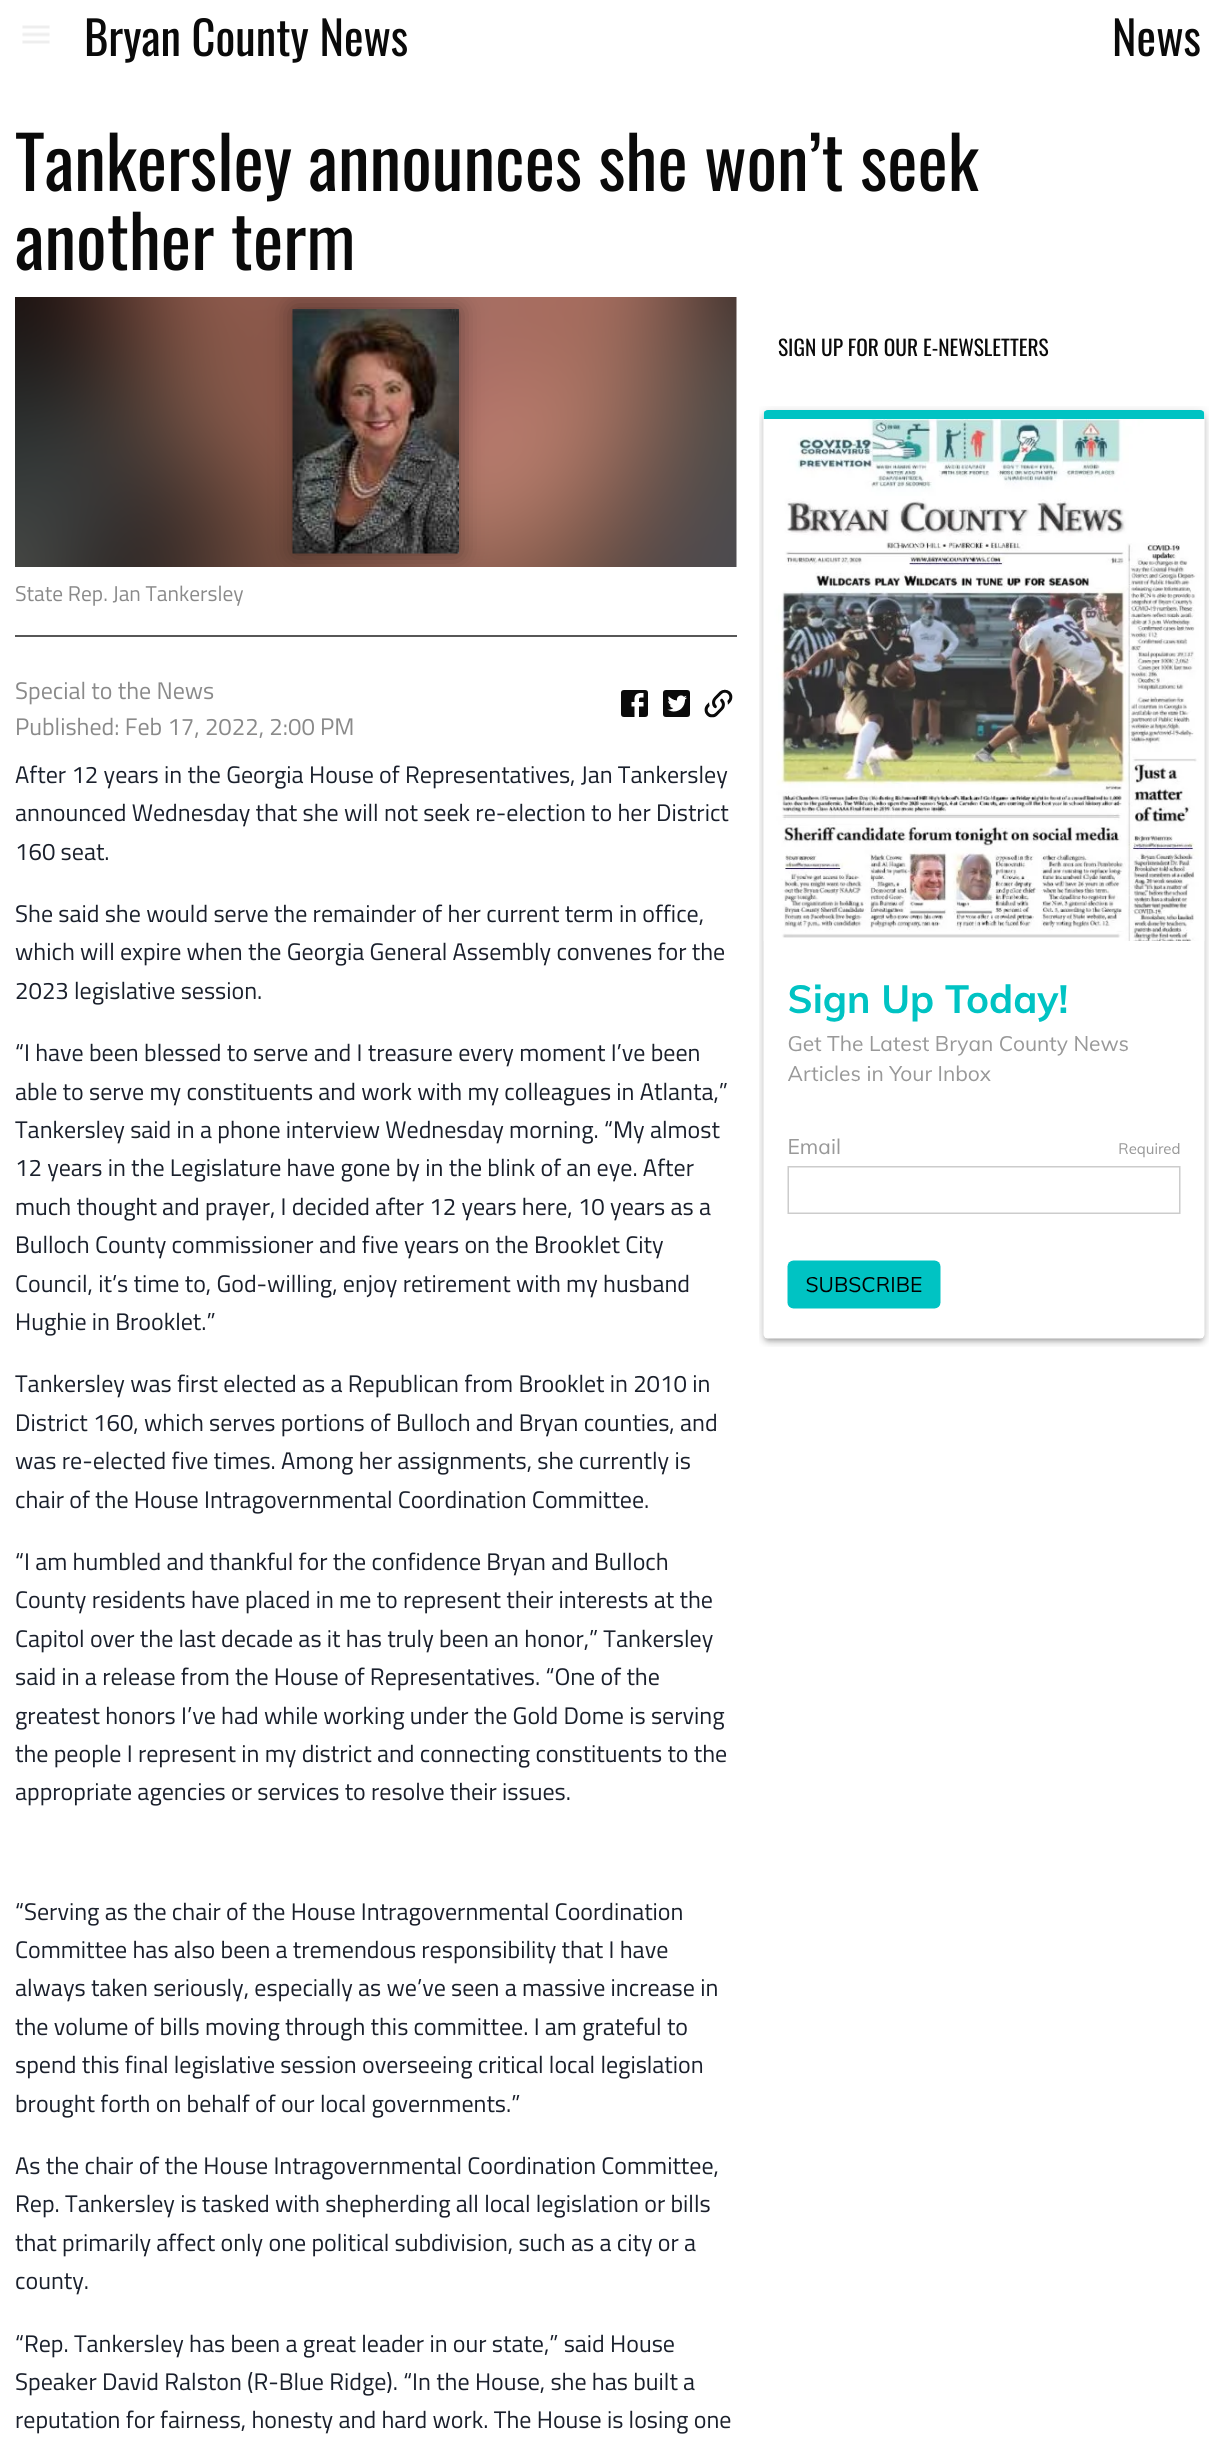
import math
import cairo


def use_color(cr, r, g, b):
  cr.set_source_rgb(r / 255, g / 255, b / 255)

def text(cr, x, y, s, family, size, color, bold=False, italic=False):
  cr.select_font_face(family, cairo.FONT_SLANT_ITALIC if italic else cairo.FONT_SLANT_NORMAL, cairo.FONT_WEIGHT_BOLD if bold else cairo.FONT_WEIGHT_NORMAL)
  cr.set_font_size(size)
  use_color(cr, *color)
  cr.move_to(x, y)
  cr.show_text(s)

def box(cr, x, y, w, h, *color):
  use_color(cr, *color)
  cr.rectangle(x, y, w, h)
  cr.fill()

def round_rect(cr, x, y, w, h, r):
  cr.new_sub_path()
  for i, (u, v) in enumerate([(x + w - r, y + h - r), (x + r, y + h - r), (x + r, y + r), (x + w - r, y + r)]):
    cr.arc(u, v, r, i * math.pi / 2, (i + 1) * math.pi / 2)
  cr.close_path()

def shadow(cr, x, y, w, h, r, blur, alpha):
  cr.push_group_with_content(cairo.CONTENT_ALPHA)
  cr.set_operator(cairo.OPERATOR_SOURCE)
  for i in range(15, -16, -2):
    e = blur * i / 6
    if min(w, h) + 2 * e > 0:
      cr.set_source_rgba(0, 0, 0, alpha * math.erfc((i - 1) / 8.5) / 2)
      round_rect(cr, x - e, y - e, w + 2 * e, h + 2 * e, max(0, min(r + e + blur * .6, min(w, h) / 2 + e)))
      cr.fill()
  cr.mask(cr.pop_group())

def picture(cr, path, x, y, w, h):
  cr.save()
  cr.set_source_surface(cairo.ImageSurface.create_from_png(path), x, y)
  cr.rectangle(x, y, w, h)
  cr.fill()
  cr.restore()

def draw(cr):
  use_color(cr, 255, 255, 255)
  cr.paint()
  picture(cr, "img_01.png", 22, 25, 28, 19)
  picture(cr, "img_02.png", 759, 406, 450, 941)
  picture(cr, "img_04.png", 15, 297, 722, 270)
  cr.save()
  cr.rectangle(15, 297, 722, 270)
  cr.clip()
  use_color(cr, 0, 0, 0)
  shadow(cr, 293, 309, 166, 245, 0, 12, 0.4)
  cr.restore()
  picture(cr, "img_03.png", 292, 309, 167, 245)
  box(cr, 15, 635, 722, 2, 87, 87, 87)
  picture(cr, "img_05.png", 621, 690, 27, 27)
  picture(cr, "img_06.png", 663, 690, 27, 27)
  picture(cr, "img_07.png", 704, 689, 29, 29)
  text(cr, 84, 56, "Bryan County News", "Oswald", 46.5, (10, 10, 10))
  text(cr, 1112, 56, "News", "Oswald", 46.5, (10, 10, 10))
  text(cr, 15, 191, "Tankersley announces she won’t seek", "Oswald", 72, (10, 10, 10))
  text(cr, 15, 270, "another term", "Oswald", 72, (10, 10, 10))
  text(cr, 778, 356, "SIGN UP FOR OUR E-NEWSLETTERS", "Oswald", 21.4, (10, 10, 10))
  text(cr, 15, 601, "State Rep. Jan Tankersley", "Titillium Web", 21.4, (138, 138, 138))
  text(cr, 15, 699, "Special to the News", "Titillium Web", 24, (138, 138, 138))
  text(cr, 15, 735, "Published: Feb 17, 2022, 2:00 PM", "Titillium Web", 24, (138, 138, 138))
  text(cr, 15, 783, "After 12 years in the Georgia House of Representatives, Jan Tankersley", "Titillium Web", 24, (26, 32, 44))
  text(cr, 15, 821, "announced Wednesday that she will not seek re-election to her District", "Titillium Web", 24, (26, 32, 44))
  text(cr, 15, 860, "160 seat.", "Titillium Web", 24, (26, 32, 44))
  text(cr, 15, 922, "She said she would serve the remainder of her current term in office,", "Titillium Web", 24, (26, 32, 44))
  text(cr, 15, 960, "which will expire when the Georgia General Assembly convenes for the", "Titillium Web", 24, (26, 32, 44))
  text(cr, 15, 999, "2023 legislative session.", "Titillium Web", 24, (26, 32, 44))
  text(cr, 15, 1061, "“I have been blessed to serve and I treasure every moment I’ve been", "Titillium Web", 24, (26, 32, 44))
  text(cr, 15, 1100, "able to serve my constituents and work with my colleagues in Atlanta,”", "Titillium Web", 24, (26, 32, 44))
  text(cr, 15, 1138, "Tankersley said in a phone interview Wednesday morning. “My almost", "Titillium Web", 24, (26, 32, 44))
  text(cr, 15, 1176, "12 years in the Legislature have gone by in the blink of an eye. After", "Titillium Web", 24, (26, 32, 44))
  text(cr, 15, 1215, "much thought and prayer, I decided after 12 years here, 10 years as a", "Titillium Web", 24, (26, 32, 44))
  text(cr, 15, 1253, "Bulloch County commissioner and five years on the Brooklet City", "Titillium Web", 24, (26, 32, 44))
  text(cr, 15, 1292, "Council, it’s time to, God-willing, enjoy retirement with my husband", "Titillium Web", 24, (26, 32, 44))
  text(cr, 15, 1330, "Hughie in Brooklet.”", "Titillium Web", 24, (26, 32, 44))
  text(cr, 15, 1392, "Tankersley was first elected as a Republican from Brooklet in 2010 in", "Titillium Web", 24, (26, 32, 44))
  text(cr, 15, 1431, "District 160, which serves portions of Bulloch and Bryan counties, and", "Titillium Web", 24, (26, 32, 44))
  text(cr, 15, 1469, "was re-elected five times. Among her assignments, she currently is", "Titillium Web", 24, (26, 32, 44))
  text(cr, 15, 1508, "chair of the House Intragovernmental Coordination Committee.", "Titillium Web", 24, (26, 32, 44))
  text(cr, 15, 1570, "“I am humbled and thankful for the confidence Bryan and Bulloch", "Titillium Web", 24, (26, 32, 44))
  text(cr, 15, 1608, "County residents have placed in me to represent their interests at the", "Titillium Web", 24, (26, 32, 44))
  text(cr, 15, 1647, "Capitol over the last decade as it has truly been an honor,” Tankersley", "Titillium Web", 24, (26, 32, 44))
  text(cr, 15, 1685, "said in a release from the House of Representatives. “One of the", "Titillium Web", 24, (26, 32, 44))
  text(cr, 15, 1724, "greatest honors I’ve had while working under the Gold Dome is serving", "Titillium Web", 24, (26, 32, 44))
  text(cr, 15, 1762, "the people I represent in my district and connecting constituents to the", "Titillium Web", 24, (26, 32, 44))
  text(cr, 15, 1800, "appropriate agencies or services to resolve their issues.", "Titillium Web", 24, (26, 32, 44))
  text(cr, 15, 1920, "“Serving as the chair of the House Intragovernmental Coordination", "Titillium Web", 24, (26, 32, 44))
  text(cr, 15, 1958, "Committee has also been a tremendous responsibility that I have", "Titillium Web", 24, (26, 32, 44))
  text(cr, 15, 1996, "always taken seriously, especially as we’ve seen a massive increase in", "Titillium Web", 24, (26, 32, 44))
  text(cr, 15, 2035, "the volume of bills moving through this committee. I am grateful to", "Titillium Web", 24, (26, 32, 44))
  text(cr, 15, 2073, "spend this final legislative session overseeing critical local legislation", "Titillium Web", 24, (26, 32, 44))
  text(cr, 15, 2112, "brought forth on behalf of our local governments.”", "Titillium Web", 24, (26, 32, 44))
  text(cr, 15, 2174, "As the chair of the House Intragovernmental Coordination Committee,", "Titillium Web", 24, (26, 32, 44))
  text(cr, 15, 2212, "Rep. Tankersley is tasked with shepherding all local legislation or bills", "Titillium Web", 24, (26, 32, 44))
  text(cr, 15, 2251, "that primarily affect only one political subdivision, such as a city or a", "Titillium Web", 24, (26, 32, 44))
  text(cr, 15, 2289, "county.", "Titillium Web", 24, (26, 32, 44))
  text(cr, 15, 2352, "“Rep. Tankersley has been a great leader in our state,” said House", "Titillium Web", 24, (26, 32, 44))
  text(cr, 15, 2390, "Speaker David Ralston (R-Blue Ridge). “In the House, she has built a", "Titillium Web", 24, (26, 32, 44))
  text(cr, 15, 2428, "reputation for fairness, honesty and hard work. The House is losing one", "Titillium Web", 24, (26, 32, 44))


surface = cairo.ImageSurface(cairo.FORMAT_RGB24, 1224, 2453)
cr = cairo.Context(surface)
options = cairo.FontOptions()
options.set_hint_metrics(cairo.HINT_METRICS_OFF)
options.set_hint_style(cairo.HINT_STYLE_NONE)
cr.set_font_options(options)
cr.set_miter_limit(4)
draw(cr)
surface.write_to_png("out.png")
